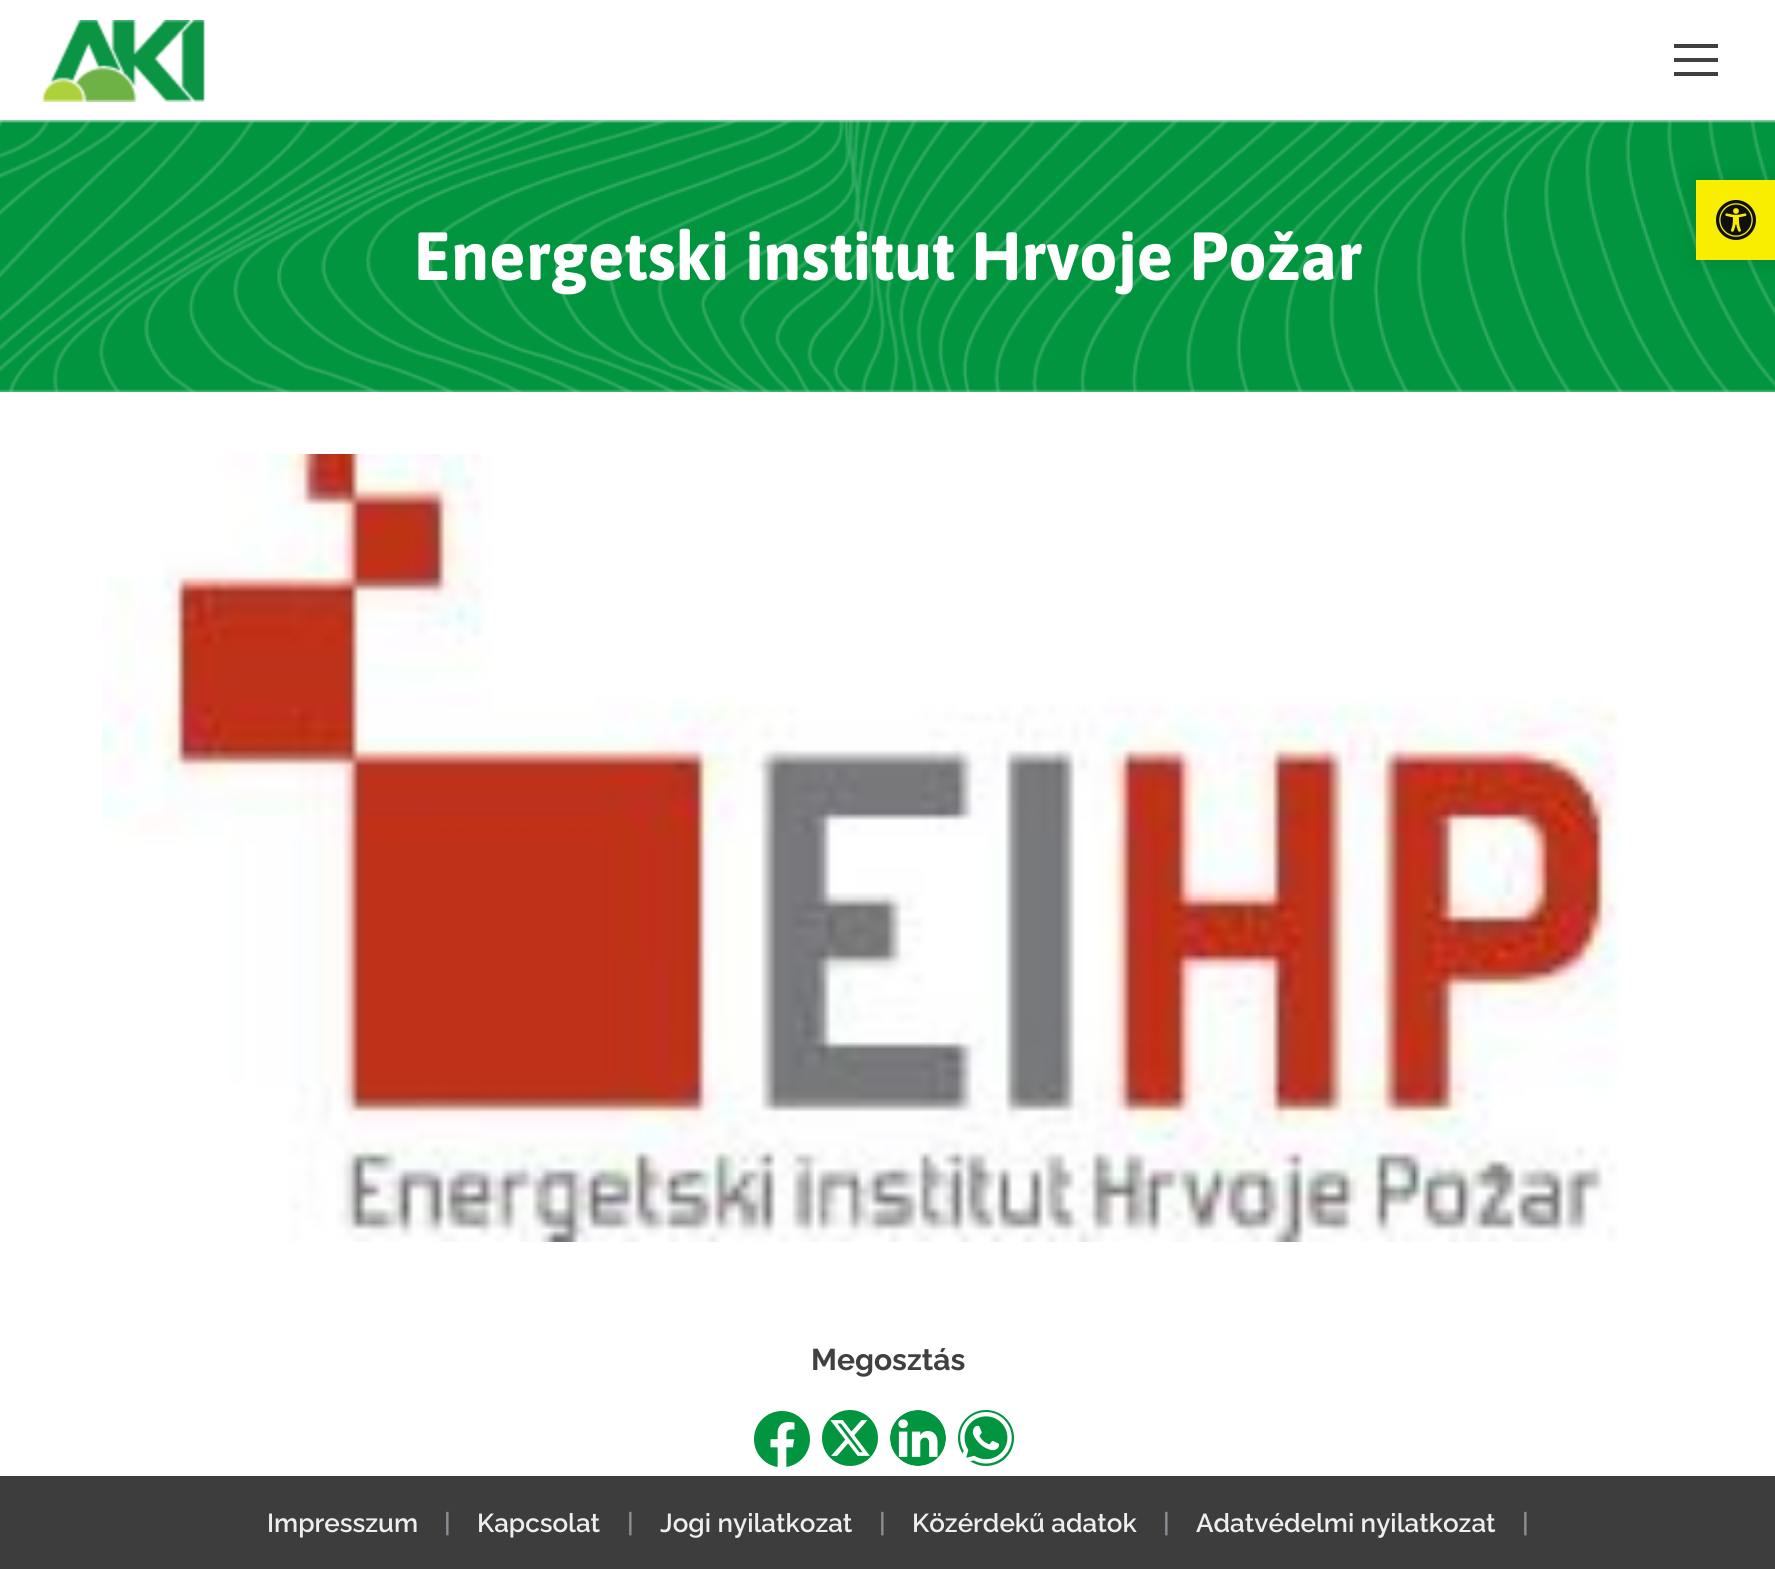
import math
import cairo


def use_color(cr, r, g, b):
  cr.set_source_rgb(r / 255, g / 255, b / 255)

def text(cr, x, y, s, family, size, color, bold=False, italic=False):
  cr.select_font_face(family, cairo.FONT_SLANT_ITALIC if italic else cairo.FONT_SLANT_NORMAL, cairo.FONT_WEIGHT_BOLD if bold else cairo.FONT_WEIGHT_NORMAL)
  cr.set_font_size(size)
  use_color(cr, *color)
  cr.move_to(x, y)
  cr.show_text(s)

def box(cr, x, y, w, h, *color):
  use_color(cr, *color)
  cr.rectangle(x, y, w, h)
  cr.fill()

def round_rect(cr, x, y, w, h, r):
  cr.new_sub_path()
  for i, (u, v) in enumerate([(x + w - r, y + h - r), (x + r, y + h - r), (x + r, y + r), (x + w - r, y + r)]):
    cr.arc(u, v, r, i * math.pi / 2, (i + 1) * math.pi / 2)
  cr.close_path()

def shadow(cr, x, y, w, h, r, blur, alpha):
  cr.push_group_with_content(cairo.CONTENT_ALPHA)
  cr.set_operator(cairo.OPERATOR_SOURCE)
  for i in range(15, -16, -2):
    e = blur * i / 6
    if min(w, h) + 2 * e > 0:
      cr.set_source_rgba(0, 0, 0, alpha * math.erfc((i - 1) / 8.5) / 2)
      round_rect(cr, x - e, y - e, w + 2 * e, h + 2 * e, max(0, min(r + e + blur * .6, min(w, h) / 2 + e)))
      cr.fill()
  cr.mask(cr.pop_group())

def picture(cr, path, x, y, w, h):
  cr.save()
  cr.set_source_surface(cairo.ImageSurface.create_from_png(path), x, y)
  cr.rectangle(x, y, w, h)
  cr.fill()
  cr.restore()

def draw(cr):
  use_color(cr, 255, 255, 255)
  cr.paint()
  picture(cr, "img_01.png", 41, 20, 164, 82)
  box(cr, 1674, 44, 44, 4, 64, 64, 65)
  box(cr, 1674, 58, 44, 4, 64, 64, 65)
  box(cr, 1674, 72, 44, 4, 64, 64, 65)
  picture(cr, "img_02.png", 0, 120, 1775, 272)
  picture(cr, "img_03.png", 102, 454, 1520, 788)
  picture(cr, "img_04.png", 754, 1411, 56, 56)
  use_color(cr, 0, 149, 62)
  cr.arc(850, 1438, 29, 0, 2 * math.pi)
  cr.fill_preserve()
  use_color(cr, 255, 255, 255)
  cr.stroke()
  picture(cr, "img_05.png", 830, 1420, 40, 36)
  picture(cr, "img_06.png", 890, 1410, 56, 56)
  use_color(cr, 0, 149, 62)
  cr.arc(986, 1438, 29, 0, 2 * math.pi)
  cr.fill_preserve()
  use_color(cr, 255, 255, 255)
  cr.stroke()
  picture(cr, "img_07.png", 960, 1412, 52, 52)
  box(cr, 0, 1476, 1775, 93, 61, 61, 61)
  use_color(cr, 0, 0, 0)
  shadow(cr, 1696, 180, 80, 80, 0, 10, 0.1)
  box(cr, 1696, 180, 79, 80, 249, 237, 0)
  picture(cr, "img_08.png", 1716, 200, 40, 40)
  text(cr, 414, 280, "Energetski institut Hrvoje Požar", "Asap", 68, (255, 255, 255), bold=True)
  text(cr, 811, 1370, "Megosztás", "Raleway", 30, (64, 64, 65), bold=True)
  text(cr, 267, 1532, "Impresszum", "Raleway SemiBold", 26, (238, 238, 238))
  text(cr, 444, 1532, "|", "Raleway SemiBold", 26, (139, 141, 148))
  text(cr, 477, 1532, "Kapcsolat", "Raleway SemiBold", 26, (238, 238, 238))
  text(cr, 627, 1532, "|", "Raleway SemiBold", 26, (139, 141, 148))
  text(cr, 660, 1532, "Jogi nyilatkozat", "Raleway SemiBold", 26, (238, 238, 238))
  text(cr, 879, 1532, "|", "Raleway SemiBold", 26, (139, 141, 148))
  text(cr, 912, 1532, "Közérdekű adatok", "Raleway SemiBold", 26, (238, 238, 238))
  text(cr, 1163, 1532, "|", "Raleway SemiBold", 26, (139, 141, 148))
  text(cr, 1196, 1532, "Adatvédelmi nyilatkozat", "Raleway SemiBold", 26, (238, 238, 238))
  text(cr, 1522, 1532, "|", "Raleway SemiBold", 26, (139, 141, 148))


surface = cairo.ImageSurface(cairo.FORMAT_RGB24, 1775, 1569)
cr = cairo.Context(surface)
options = cairo.FontOptions()
options.set_hint_metrics(cairo.HINT_METRICS_OFF)
options.set_hint_style(cairo.HINT_STYLE_NONE)
cr.set_font_options(options)
cr.set_miter_limit(4)
draw(cr)
surface.write_to_png("out.png")
